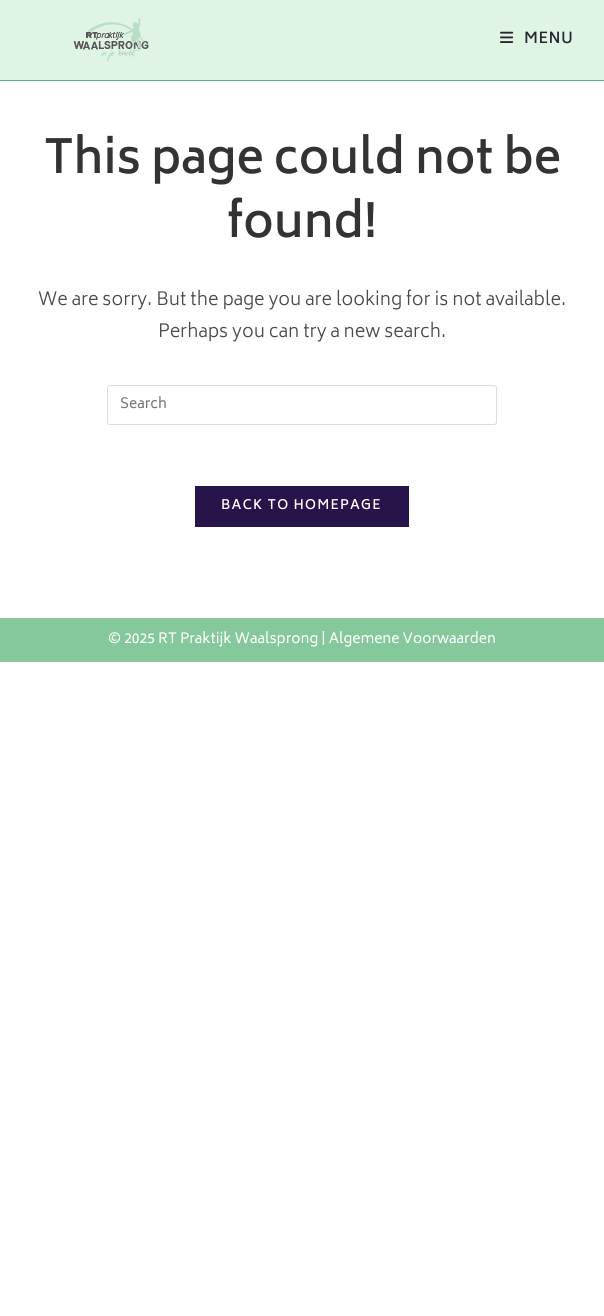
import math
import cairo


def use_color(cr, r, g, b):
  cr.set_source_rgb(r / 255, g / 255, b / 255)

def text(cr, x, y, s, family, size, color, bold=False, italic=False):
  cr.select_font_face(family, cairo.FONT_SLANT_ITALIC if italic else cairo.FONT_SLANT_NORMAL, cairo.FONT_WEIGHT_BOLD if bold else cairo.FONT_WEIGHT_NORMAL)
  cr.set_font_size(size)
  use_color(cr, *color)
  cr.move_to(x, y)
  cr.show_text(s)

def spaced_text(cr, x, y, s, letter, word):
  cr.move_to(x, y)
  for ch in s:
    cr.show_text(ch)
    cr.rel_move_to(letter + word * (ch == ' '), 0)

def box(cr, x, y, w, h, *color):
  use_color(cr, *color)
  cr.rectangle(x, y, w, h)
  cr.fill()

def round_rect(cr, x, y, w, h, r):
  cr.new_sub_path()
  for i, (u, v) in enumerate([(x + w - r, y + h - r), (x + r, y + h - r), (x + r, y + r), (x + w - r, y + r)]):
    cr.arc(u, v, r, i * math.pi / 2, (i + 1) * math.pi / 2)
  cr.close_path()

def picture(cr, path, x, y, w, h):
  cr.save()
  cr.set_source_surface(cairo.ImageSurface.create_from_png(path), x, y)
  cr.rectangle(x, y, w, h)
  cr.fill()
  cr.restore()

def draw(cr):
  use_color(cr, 255, 255, 255)
  cr.paint()
  box(cr, 0, 0, 604, 80, 223, 244, 226)
  box(cr, 0, 80, 604, 1, 72, 186, 129)
  picture(cr, "img_01.png", 73, 18, 76, 44)
  picture(cr, "img_02.png", 500, 31, 14, 12)
  round_rect(cr, 107.5, 385.5, 389, 39, 2.5)
  use_color(cr, 221, 221, 221)
  cr.set_line_width(1)
  cr.stroke()
  box(cr, 195, 486, 214, 41, 38, 20, 74)
  box(cr, 0, 618, 604, 44, 133, 200, 156)
  cr.select_font_face("Biryani SemiBold")
  cr.set_font_size(15)
  use_color(cr, 38, 38, 51)
  spaced_text(cr, 524, 43, "MENU", 0.5, 0)
  text(cr, 44, 173, "This page could not be", "Biryani SemiBold", 46, (51, 51, 51))
  text(cr, 227, 237, "found!", "Biryani SemiBold", 46, (51, 51, 51))
  text(cr, 38, 305, "We are sorry. But the page you are looking for is not available.", "Biryani Light", 18, (74, 74, 74))
  text(cr, 158, 337, "Perhaps you can try a new search.", "Biryani Light", 18, (74, 74, 74))
  text(cr, 120, 408, "Search", "Biryani", 14, (117, 117, 117))
  cr.select_font_face("Biryani SemiBold")
  cr.set_font_size(13)
  use_color(cr, 255, 255, 255)
  spaced_text(cr, 221, 509, "BACK TO HOMEPAGE", 1.25, 0)
  text(cr, 108, 643, "© 2025 RT Praktijk Waalsprong | Algemene Voorwaarden", "Biryani", 14, (255, 255, 255))


surface = cairo.ImageSurface(cairo.FORMAT_RGB24, 604, 1316)
cr = cairo.Context(surface)
options = cairo.FontOptions()
options.set_hint_metrics(cairo.HINT_METRICS_OFF)
options.set_hint_style(cairo.HINT_STYLE_NONE)
cr.set_font_options(options)
cr.set_miter_limit(4)
draw(cr)
surface.write_to_png("out.png")
